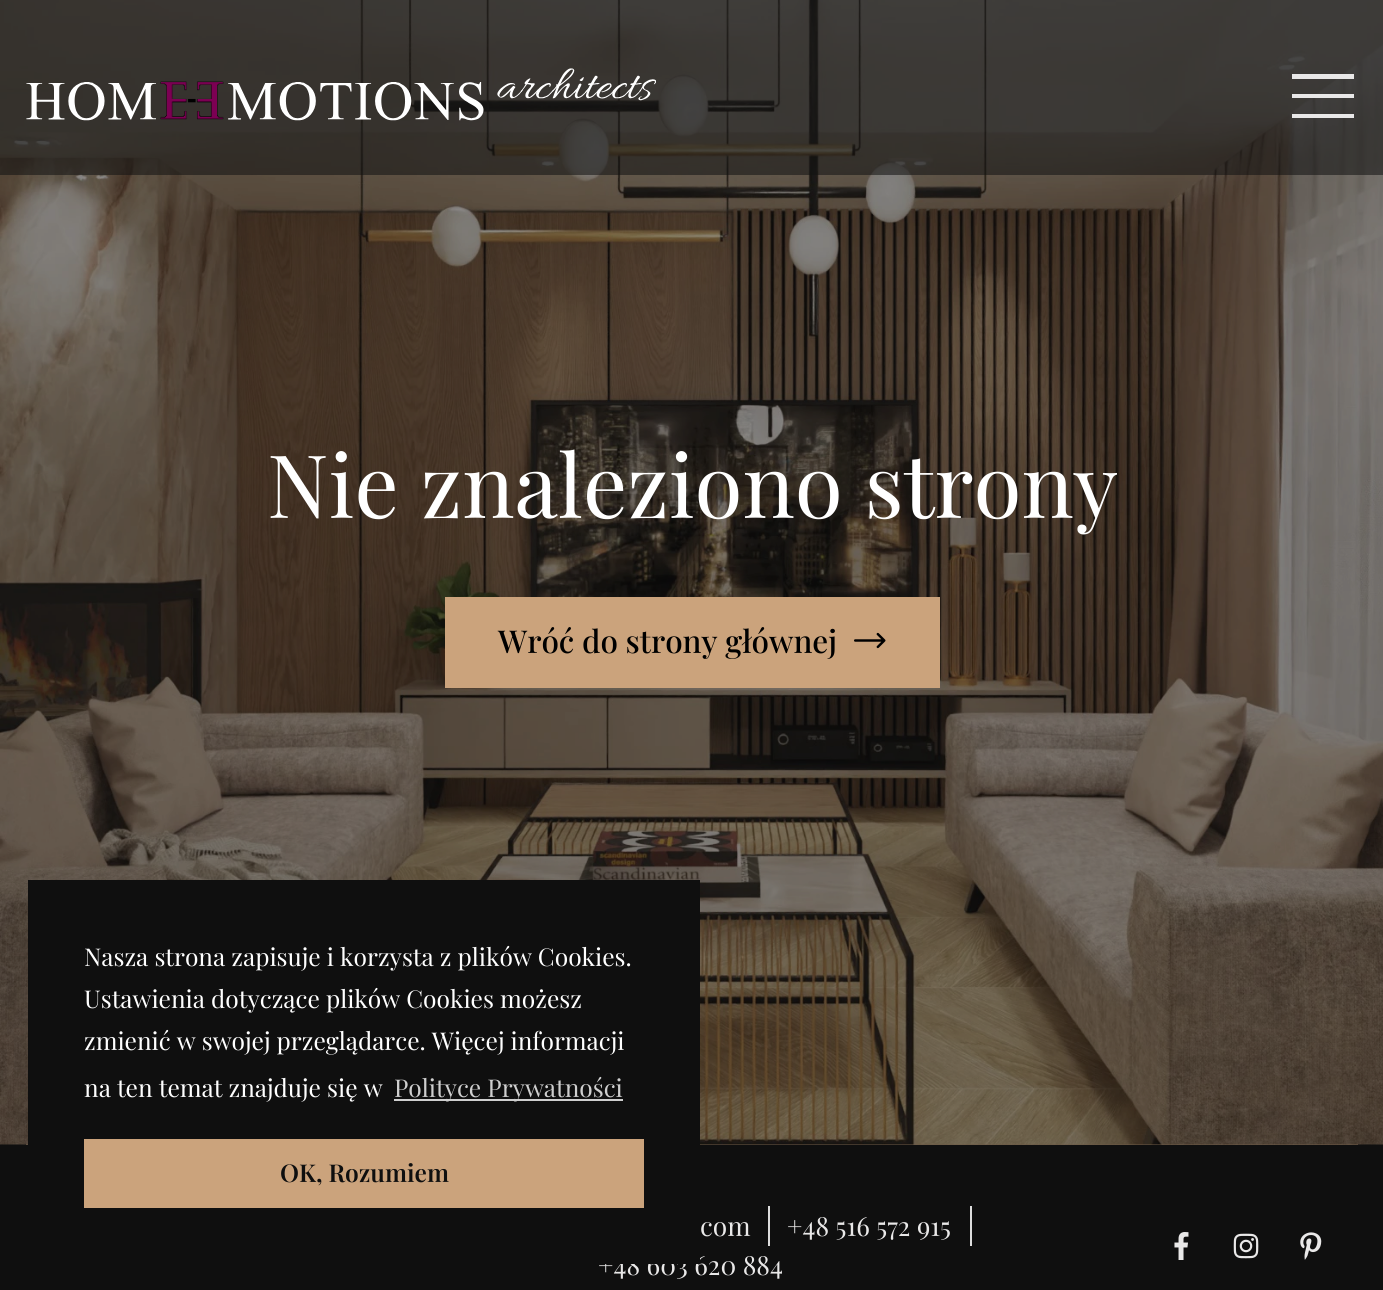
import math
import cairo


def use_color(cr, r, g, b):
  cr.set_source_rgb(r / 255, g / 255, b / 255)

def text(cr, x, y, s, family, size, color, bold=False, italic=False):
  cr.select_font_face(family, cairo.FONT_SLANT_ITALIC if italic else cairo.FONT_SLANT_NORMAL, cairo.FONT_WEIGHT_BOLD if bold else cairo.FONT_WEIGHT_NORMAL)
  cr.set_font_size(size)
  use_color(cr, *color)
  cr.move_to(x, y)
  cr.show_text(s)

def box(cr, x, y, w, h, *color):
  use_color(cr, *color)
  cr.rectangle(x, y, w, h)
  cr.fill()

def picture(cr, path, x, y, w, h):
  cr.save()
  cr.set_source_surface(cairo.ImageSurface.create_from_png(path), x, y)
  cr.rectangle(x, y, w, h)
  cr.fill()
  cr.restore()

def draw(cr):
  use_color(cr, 15, 15, 15)
  cr.paint()
  box(cr, 26, 1144, 1332, 1, 111, 91, 71)
  picture(cr, "img_02.png", 0, 0, 1383, 1145)
  cr.set_source_rgba(0.071, 0.071, 0.071, 0.56)
  cr.rectangle(0, 0, 1383, 175)
  cr.fill()
  picture(cr, "img_01.png", 26, 68, 630, 53)
  box(cr, 1292, 74, 62, 5, 233, 232, 232)
  box(cr, 1292, 94, 62, 4, 233, 232, 232)
  box(cr, 1292, 114, 62, 4, 233, 232, 232)
  box(cr, 445, 597, 495, 91, 203, 163, 124)
  picture(cr, "img_03.png", 854, 632, 32, 17)
  box(cr, 768, 1206, 2, 40, 221, 221, 221)
  box(cr, 970, 1206, 2, 40, 221, 221, 221)
  picture(cr, "img_04.png", 1174, 1232, 15, 28)
  picture(cr, "img_05.png", 1233, 1233, 26, 26)
  picture(cr, "img_06.png", 1300, 1232, 22, 28)
  text(cr, 267, 518, "Nie znaleziono strony", "Playfair Display", 87.5, (255, 255, 255))
  text(cr, 498, 653, "Wróć do strony głównej", "Playfair Display Medium", 31.5, (0, 0, 0))
  text(cr, 700, 1236, "com", "Playfair Display", 26.25, (233, 232, 232))
  text(cr, 787, 1236, "+48 516 572 915", "Playfair Display", 26.25, (233, 232, 232))
  text(cr, 598, 1275, "+48 603 620 884", "Playfair Display", 26.25, (233, 232, 232))
  box(cr, 28, 880, 672, 384, 15, 15, 15)
  box(cr, 394, 1099, 229, 2, 207, 207, 207)
  text(cr, 394, 1097, "Polityce Prywatności", "Playfair Display", 24.5, (207, 207, 207))
  box(cr, 84, 1139, 560, 69, 203, 163, 124)
  text(cr, 280, 1182, "OK, Rozumiem", "Playfair Display SemiBold", 24.5, (15, 15, 15))
  text(cr, 84, 1097, "na ten temat znajduje się w", "Playfair Display", 24.5, (255, 255, 255))
  text(cr, 84, 1050, "zmienić w swojej przeglądarce. Więcej informacji", "Playfair Display", 24.5, (255, 255, 255))
  text(cr, 84, 1008, "Ustawienia dotyczące plików Cookies możesz", "Playfair Display", 24.5, (255, 255, 255))
  text(cr, 84, 966, "Nasza strona zapisuje i korzysta z plików Cookies.", "Playfair Display", 24.5, (255, 255, 255))


surface = cairo.ImageSurface(cairo.FORMAT_RGB24, 1383, 1290)
cr = cairo.Context(surface)
options = cairo.FontOptions()
options.set_hint_metrics(cairo.HINT_METRICS_OFF)
options.set_hint_style(cairo.HINT_STYLE_NONE)
cr.set_font_options(options)
cr.set_miter_limit(4)
draw(cr)
surface.write_to_png("out.png")
